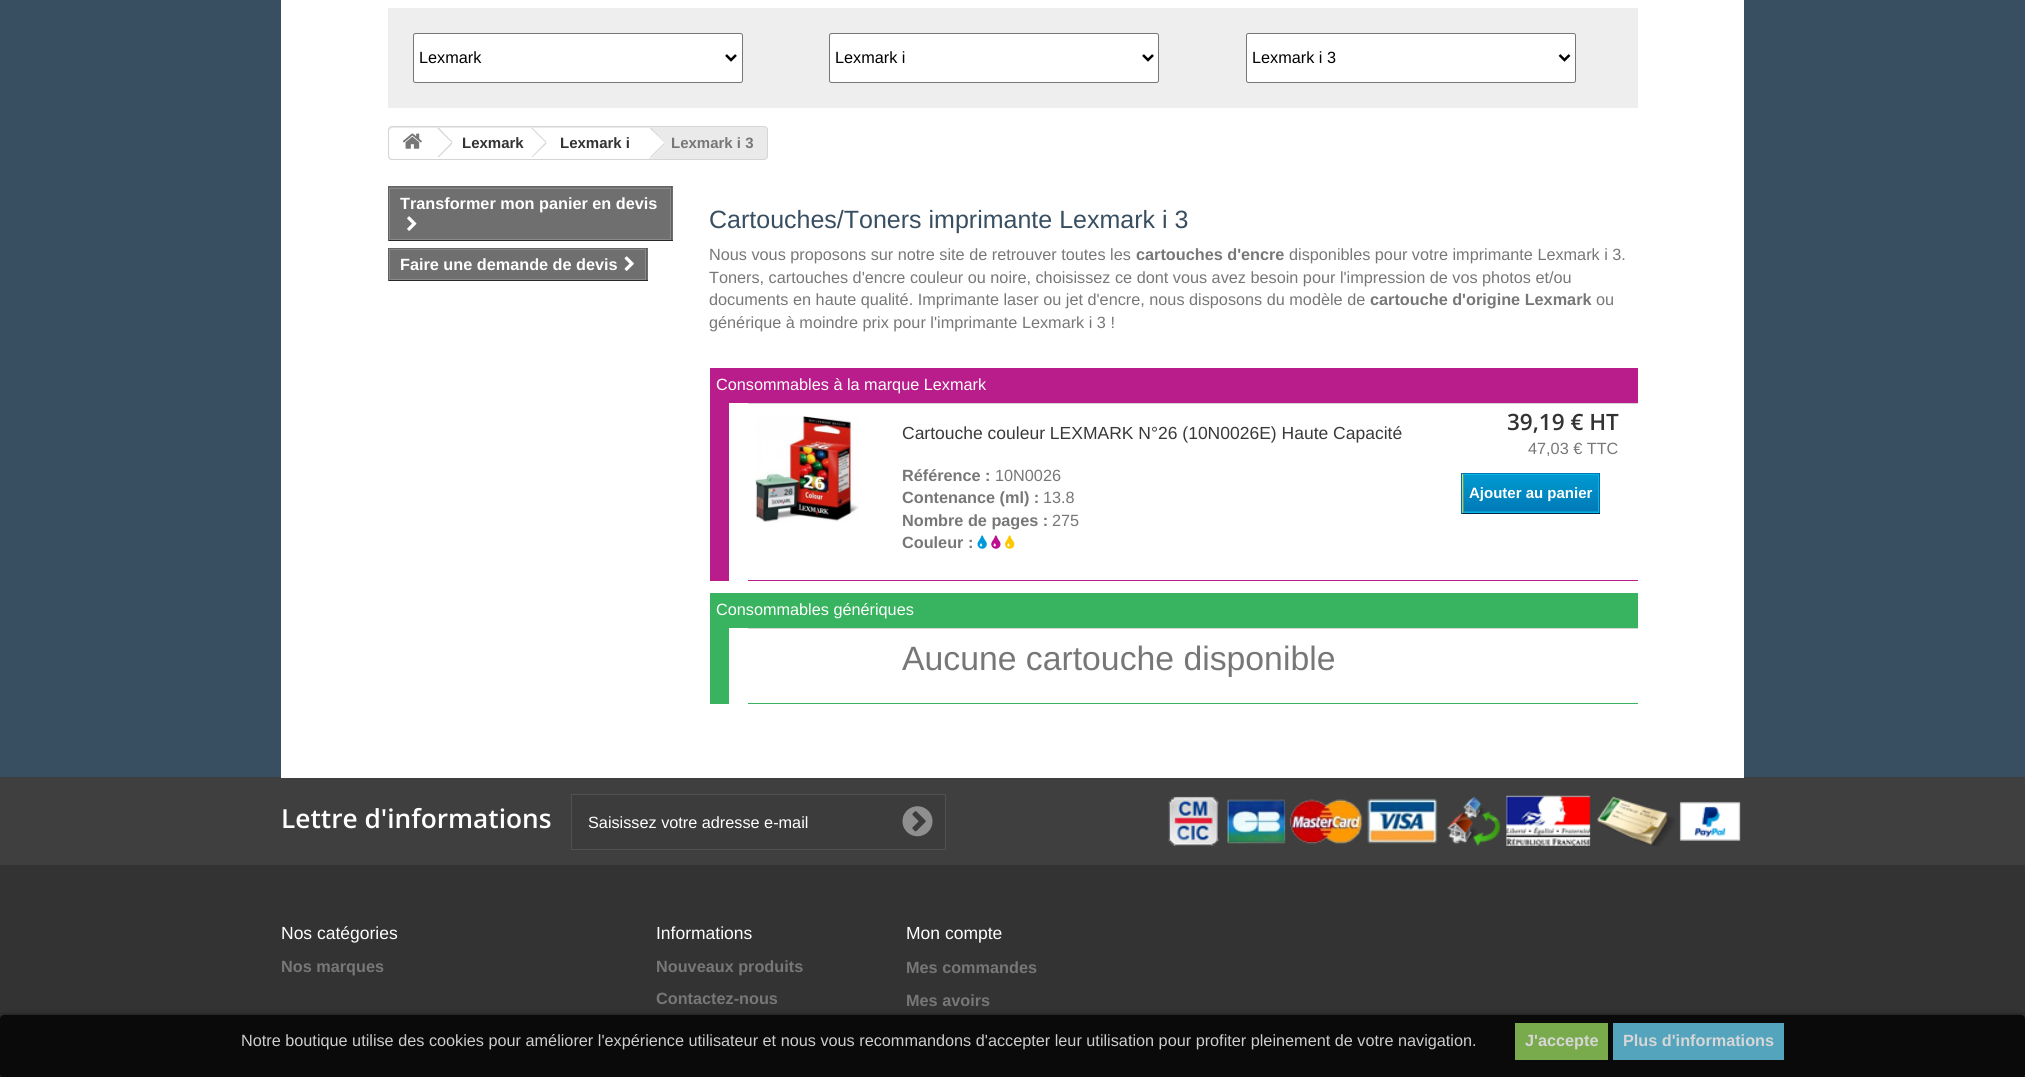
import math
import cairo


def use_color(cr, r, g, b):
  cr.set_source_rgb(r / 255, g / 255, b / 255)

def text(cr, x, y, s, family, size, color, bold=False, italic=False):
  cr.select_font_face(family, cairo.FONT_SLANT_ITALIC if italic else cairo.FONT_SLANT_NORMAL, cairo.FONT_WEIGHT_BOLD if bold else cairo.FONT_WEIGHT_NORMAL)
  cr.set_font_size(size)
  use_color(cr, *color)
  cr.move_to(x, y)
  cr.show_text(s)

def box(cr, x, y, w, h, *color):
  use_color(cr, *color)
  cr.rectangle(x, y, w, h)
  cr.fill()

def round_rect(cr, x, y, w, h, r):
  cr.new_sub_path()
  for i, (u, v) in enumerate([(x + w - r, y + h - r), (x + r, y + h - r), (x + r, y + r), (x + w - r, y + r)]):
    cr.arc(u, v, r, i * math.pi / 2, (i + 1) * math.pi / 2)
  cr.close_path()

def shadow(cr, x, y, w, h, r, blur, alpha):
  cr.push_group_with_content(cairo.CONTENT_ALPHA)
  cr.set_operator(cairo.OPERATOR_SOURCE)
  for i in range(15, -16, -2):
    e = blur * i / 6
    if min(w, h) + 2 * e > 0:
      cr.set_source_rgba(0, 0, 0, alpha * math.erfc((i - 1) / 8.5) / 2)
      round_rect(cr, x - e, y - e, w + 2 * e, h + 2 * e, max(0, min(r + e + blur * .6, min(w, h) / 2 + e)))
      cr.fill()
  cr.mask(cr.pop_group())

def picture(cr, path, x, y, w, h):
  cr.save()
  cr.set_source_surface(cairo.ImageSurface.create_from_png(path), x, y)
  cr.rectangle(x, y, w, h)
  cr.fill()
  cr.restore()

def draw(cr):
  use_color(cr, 56, 78, 97)
  cr.paint()
  box(cr, 0, 777, 2025, 88, 63, 63, 63)
  box(cr, 281, 0, 1463, 778, 255, 255, 255)
  box(cr, 388, 8, 1250, 100, 238, 238, 238)
  use_color(cr, 255, 255, 255)
  round_rect(cr, 413.5, 33.5, 329, 49, 2)
  cr.fill_preserve()
  use_color(cr, 118, 118, 118)
  cr.set_line_width(1)
  cr.stroke()
  cr.new_path()
  cr.move_to(726, 55)
  cr.line_to(731, 60)
  cr.line_to(736, 55)
  use_color(cr, 0, 0, 0)
  cr.set_line_width(2.5)
  cr.stroke()
  use_color(cr, 255, 255, 255)
  round_rect(cr, 829.5, 33.5, 329, 49, 2)
  cr.fill_preserve()
  use_color(cr, 118, 118, 118)
  cr.set_line_width(1)
  cr.stroke()
  cr.new_path()
  cr.move_to(1143, 55)
  cr.line_to(1148, 60)
  cr.line_to(1153, 55)
  use_color(cr, 0, 0, 0)
  cr.set_line_width(2.5)
  cr.stroke()
  use_color(cr, 255, 255, 255)
  round_rect(cr, 1246.5, 33.5, 329, 49, 2)
  cr.fill_preserve()
  use_color(cr, 118, 118, 118)
  cr.set_line_width(1)
  cr.stroke()
  cr.new_path()
  cr.move_to(1559.5, 55)
  cr.line_to(1564.5, 60)
  cr.line_to(1569.5, 55)
  use_color(cr, 0, 0, 0)
  cr.set_line_width(2.5)
  cr.stroke()
  box(cr, 0, 865, 2025, 212, 51, 51, 51)
  cr.save()
  cr.set_fill_rule(cairo.FILL_RULE_EVEN_ODD)
  cr.new_path()
  cr.move_to(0, 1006)
  cr.line_to(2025, 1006)
  cr.line_to(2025, 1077)
  cr.line_to(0, 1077)
  cr.close_path()
  cr.move_to(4, 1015)
  cr.line_to(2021, 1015)
  cr.curve_to(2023, 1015, 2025, 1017, 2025, 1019)
  cr.line_to(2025, 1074)
  cr.curve_to(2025, 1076, 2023, 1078, 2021, 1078)
  cr.line_to(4, 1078)
  cr.curve_to(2, 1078, 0, 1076, 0, 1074)
  cr.line_to(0, 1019)
  cr.curve_to(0, 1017, 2, 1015, 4, 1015)
  cr.close_path()
  cr.clip()
  use_color(cr, 10, 10, 10)
  shadow(cr, 0, 1016, 2025, 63, 4, 3, 1)
  cr.restore()
  cr.set_source_rgba(0, 0, 0, 0.8)
  round_rect(cr, 0.5, 1015.5, 2024, 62, 3.5)
  cr.fill_preserve()
  use_color(cr, 10, 10, 10)
  cr.set_line_width(1)
  cr.stroke()
  box(cr, 1515, 1023, 93, 37, 121, 171, 77)
  box(cr, 1613, 1023, 171, 37, 83, 164, 188)
  use_color(cr, 234, 234, 234)
  round_rect(cr, 388.5, 126.5, 379, 33, 3.5)
  cr.fill_preserve()
  use_color(cr, 214, 212, 212)
  cr.stroke()
  use_color(cr, 255, 255, 255)
  cr.new_path()
  cr.move_to(393, 128)
  cr.line_to(436, 128)
  cr.line_to(436, 159)
  cr.line_to(393, 159)
  cr.curve_to(391, 159, 389, 157, 389, 155)
  cr.line_to(389, 132)
  cr.curve_to(389, 130, 391, 128, 393, 128)
  cr.close_path()
  cr.fill()
  picture(cr, "img_01.png", 402, 133, 20, 16)
  box(cr, 436, 128, 97, 31, 255, 255, 255)
  use_color(cr, 214, 212, 212)
  cr.new_path()
  cr.move_to(438.5, 127.5)
  cr.line_to(452.5, 142)
  cr.line_to(451.5, 142.5)
  cr.line_to(437.5, 128.5)
  cr.close_path()
  cr.fill()
  cr.new_path()
  cr.move_to(451.5, 142.5)
  cr.line_to(452.5, 143.5)
  cr.line_to(438.5, 157.5)
  cr.line_to(437.5, 157)
  cr.close_path()
  cr.fill()
  use_color(cr, 255, 255, 255)
  cr.new_path()
  cr.move_to(545.5, 128.5)
  cr.line_to(545, 128)
  cr.line_to(542.5, 128)
  cr.line_to(542, 128.5)
  cr.line_to(529.5, 141)
  cr.curve_to(528.5, 142, 528.5, 143.5, 529.5, 144.5)
  cr.line_to(542, 157)
  cr.curve_to(543, 158, 544.5, 158, 545.5, 157)
  cr.line_to(558, 144.5)
  cr.curve_to(559, 143.5, 559, 142, 558, 141)
  cr.close_path()
  cr.fill()
  box(cr, 533, 128, 116, 31, 255, 255, 255)
  use_color(cr, 214, 212, 212)
  cr.new_path()
  cr.move_to(532, 127.5)
  cr.line_to(546.5, 142)
  cr.line_to(545.5, 142.5)
  cr.line_to(531.5, 128.5)
  cr.close_path()
  cr.fill()
  cr.new_path()
  cr.move_to(545.5, 142.5)
  cr.line_to(546.5, 143.5)
  cr.line_to(532, 157.5)
  cr.line_to(531.5, 157)
  cr.close_path()
  cr.fill()
  use_color(cr, 255, 255, 255)
  cr.new_path()
  cr.move_to(652, 128.5)
  cr.line_to(651.5, 128)
  cr.line_to(649, 128)
  cr.line_to(648.5, 128.5)
  cr.line_to(636, 141)
  cr.curve_to(635, 142, 635, 143.5, 636, 144.5)
  cr.line_to(648.5, 157)
  cr.curve_to(649.5, 158, 651, 158, 652, 157)
  cr.line_to(664.5, 144.5)
  cr.curve_to(665.5, 143.5, 665.5, 142, 664.5, 141)
  cr.close_path()
  cr.fill()
  use_color(cr, 214, 212, 212)
  cr.new_path()
  cr.move_to(651, 127.5)
  cr.line_to(665, 142)
  cr.line_to(664.5, 142.5)
  cr.line_to(650, 128.5)
  cr.close_path()
  cr.fill()
  cr.new_path()
  cr.move_to(664.5, 142.5)
  cr.line_to(665, 143.5)
  cr.line_to(651, 157.5)
  cr.line_to(650, 157)
  cr.close_path()
  cr.fill()
  box(cr, 389, 187, 284, 53, 111, 111, 111)
  box(cr, 388, 186, 285, 1, 102, 102, 102)
  box(cr, 671, 186, 1, 55, 95, 95, 95)
  box(cr, 388, 240, 285, 1, 41, 41, 41)
  box(cr, 388, 186, 1, 55, 95, 95, 95)
  cr.rectangle(389.5, 188.5, 281, 51)
  use_color(cr, 139, 138, 138)
  cr.stroke()
  picture(cr, "img_02.png", 407, 216, 10, 15)
  box(cr, 390, 249, 258, 31, 111, 111, 111)
  box(cr, 388, 248, 260, 1, 102, 102, 102)
  box(cr, 646, 248, 1, 33, 95, 95, 95)
  box(cr, 388, 280, 260, 1, 41, 41, 41)
  box(cr, 388, 248, 1, 33, 95, 95, 95)
  cr.rectangle(389.5, 249.5, 256, 30)
  use_color(cr, 139, 138, 138)
  cr.stroke()
  picture(cr, "img_03.png", 624, 256, 10, 15)
  box(cr, 710, 368, 928, 35, 184, 29, 139)
  box(cr, 710, 403, 19, 178, 184, 29, 139)
  box(cr, 748, 403, 890, 1, 214, 212, 212)
  box(cr, 748, 580, 890, 1, 184, 29, 139)
  picture(cr, "img_04.png", 755, 416, 104, 107)
  picture(cr, "img_05.png", 977, 535, 10, 14)
  picture(cr, "img_06.png", 991, 535, 10, 14)
  picture(cr, "img_07.png", 1005, 535, 10, 14)
  box(cr, 1462, 497, 1, 16, 244, 182, 27)
  picture(cr, "img_08.png", 1462, 474, 1, 23)
  box(cr, 1461, 473, 139, 1, 0, 121, 182)
  box(cr, 1599, 473, 1, 41, 0, 111, 168)
  box(cr, 1461, 513, 139, 1, 1, 39, 64)
  box(cr, 1461, 473, 1, 41, 0, 111, 168)
  gradient = cairo.LinearGradient(1531, 475, 1531, 511)
  gradient.add_color_stop_rgba(0, 0, 0.604, 0.816, 1)
  gradient.add_color_stop_rgba(1, 0, 0.478, 0.718, 1)
  cr.set_source(gradient)
  cr.rectangle(1464, 475, 134, 36)
  cr.fill()
  gradient = cairo.LinearGradient(1531, 511, 1531, 548)
  gradient.add_color_stop_rgba(0, 0, 0.604, 0.816, 1)
  gradient.add_color_stop_rgba(1, 0, 0.478, 0.718, 1)
  cr.set_source(gradient)
  cr.rectangle(1463, 511, 136, 1)
  cr.fill()
  cr.rectangle(1463.5, 474.5, 135, 38)
  use_color(cr, 6, 178, 230)
  cr.stroke()
  box(cr, 710, 593, 928, 35, 56, 179, 95)
  box(cr, 710, 628, 19, 76, 56, 179, 95)
  box(cr, 748, 628, 890, 1, 214, 212, 212)
  box(cr, 748, 703, 890, 1, 56, 179, 95)
  use_color(cr, 60, 60, 60)
  cr.rectangle(571.5, 794.5, 374, 55)
  cr.fill_preserve()
  use_color(cr, 81, 81, 81)
  cr.stroke()
  picture(cr, "img_09.png", 902, 806, 31, 31)
  picture(cr, "img_10.png", 1168, 795, 573, 51)
  text(cr, 419, 63, "Lexmark", "Liberation Sans", 16.25, (0, 0, 0))
  text(cr, 835, 63, "Lexmark i", "Liberation Sans", 16.25, (0, 0, 0))
  text(cr, 1252, 63, "Lexmark i 3", "Liberation Sans", 16.25, (0, 0, 0))
  text(cr, 241, 1046, "Notre boutique utilise des cookies pour améliorer l'expérience utilisateur et nous vous recommandons d'accepter leur utilisation pour profiter pleinement de votre navigation.", "Liberation Sans", 16.25, (206, 206, 206))
  text(cr, 1525, 1046, "J'accepte", "Liberation Sans", 16.25, (214, 214, 214), bold=True)
  text(cr, 1623, 1046, "Plus d'informations", "Liberation Sans", 16.25, (214, 214, 214), bold=True)
  text(cr, 462, 148, "Lexmark", "Liberation Sans", 15, (51, 51, 51), bold=True)
  text(cr, 560, 148, "Lexmark i", "Liberation Sans", 15, (51, 51, 51), bold=True)
  text(cr, 671, 148, "Lexmark i 3", "Liberation Sans", 15, (119, 119, 119), bold=True)
  text(cr, 400, 209, "Transformer mon panier en devis", "Liberation Sans", 16.25, (255, 255, 255), bold=True)
  text(cr, 400, 270, "Faire une demande de devis", "Liberation Sans", 16.25, (255, 255, 255), bold=True)
  text(cr, 709, 228, "Cartouches/Toners imprimante Lexmark i 3", "Liberation Sans", 25, (56, 78, 97))
  text(cr, 709, 260, "Nous vous proposons sur notre site de retrouver toutes les", "Liberation Sans", 16.25, (119, 119, 119))
  text(cr, 1136, 260, "cartouches d'encre", "Liberation Sans", 16.25, (119, 119, 119), bold=True)
  text(cr, 1289, 260, "disponibles pour votre imprimante Lexmark i 3.", "Liberation Sans", 16.25, (119, 119, 119))
  text(cr, 709, 283, "Toners, cartouches d'encre couleur ou noire, choisissez ce dont vous avez besoin pour l'impression de vos photos et/ou", "Liberation Sans", 16.25, (119, 119, 119))
  text(cr, 709, 305, "documents en haute qualité. Imprimante laser ou jet d'encre, nous disposons du modèle de", "Liberation Sans", 16.25, (119, 119, 119))
  text(cr, 1370, 305, "cartouche d'origine Lexmark", "Liberation Sans", 16.25, (119, 119, 119), bold=True)
  text(cr, 1596, 305, "ou", "Liberation Sans", 16.25, (119, 119, 119))
  text(cr, 709, 328, "générique à moindre prix pour l'imprimante Lexmark i 3 !", "Liberation Sans", 16.25, (119, 119, 119))
  text(cr, 716, 390, "Consommables à la marque Lexmark", "Liberation Sans", 16.25, (255, 255, 255))
  text(cr, 902, 439, "Cartouche couleur LEXMARK N°26 (10N0026E) Haute Capacité", "Liberation Sans", 17.5, (58, 57, 57))
  text(cr, 902, 481, "Référence :", "Liberation Sans", 16.25, (119, 119, 119), bold=True)
  text(cr, 995, 481, "10N0026", "Liberation Sans", 16.25, (119, 119, 119))
  text(cr, 902, 503, "Contenance (ml) :", "Liberation Sans", 16.25, (119, 119, 119), bold=True)
  text(cr, 1043, 503, "13.8", "Liberation Sans", 16.25, (119, 119, 119))
  text(cr, 902, 526, "Nombre de pages :", "Liberation Sans", 16.25, (119, 119, 119), bold=True)
  text(cr, 1052, 526, "275", "Liberation Sans", 16.25, (119, 119, 119))
  text(cr, 902, 548, "Couleur :", "Liberation Sans", 16.25, (119, 119, 119), bold=True)
  text(cr, 1507, 430, "39,19 € HT", "Open Sans SemiBold", 22.5, (51, 51, 51))
  text(cr, 1528, 454, "47,03 € TTC", "Liberation Sans", 16.25, (119, 119, 119))
  text(cr, 1469, 498, "Ajouter au panier", "Liberation Sans", 15, (255, 255, 255), bold=True)
  text(cr, 716, 615, "Consommables génériques", "Liberation Sans", 16.25, (255, 255, 255))
  text(cr, 902, 670, "Aucune cartouche disponible", "Liberation Sans", 33.75, (119, 119, 119))
  text(cr, 281, 828, "Lettre d'informations", "Open Sans SemiBold", 26.25, (255, 255, 255))
  text(cr, 588, 828, "Saisissez votre adresse e-mail", "Liberation Sans", 16.25, (255, 255, 255))
  text(cr, 281, 939, "Nos catégories", "Liberation Sans", 17.5, (255, 255, 255))
  text(cr, 281, 972, "Nos marques", "Liberation Sans", 16.25, (119, 119, 119), bold=True)
  text(cr, 656, 939, "Informations", "Liberation Sans", 17.5, (255, 255, 255))
  text(cr, 656, 972, "Nouveaux produits", "Liberation Sans", 16.25, (119, 119, 119), bold=True)
  text(cr, 656, 1004, "Contactez-nous", "Liberation Sans", 16.25, (119, 119, 119), bold=True)
  text(cr, 906, 939, "Mon compte", "Liberation Sans", 17.5, (255, 255, 255))
  text(cr, 906, 973, "Mes commandes", "Liberation Sans", 16.25, (119, 119, 119), bold=True)
  text(cr, 906, 1006, "Mes avoirs", "Liberation Sans", 16.25, (119, 119, 119), bold=True)


surface = cairo.ImageSurface(cairo.FORMAT_RGB24, 2025, 1077)
cr = cairo.Context(surface)
options = cairo.FontOptions()
options.set_hint_metrics(cairo.HINT_METRICS_OFF)
options.set_hint_style(cairo.HINT_STYLE_NONE)
cr.set_font_options(options)
cr.set_miter_limit(4)
draw(cr)
surface.write_to_png("out.png")
